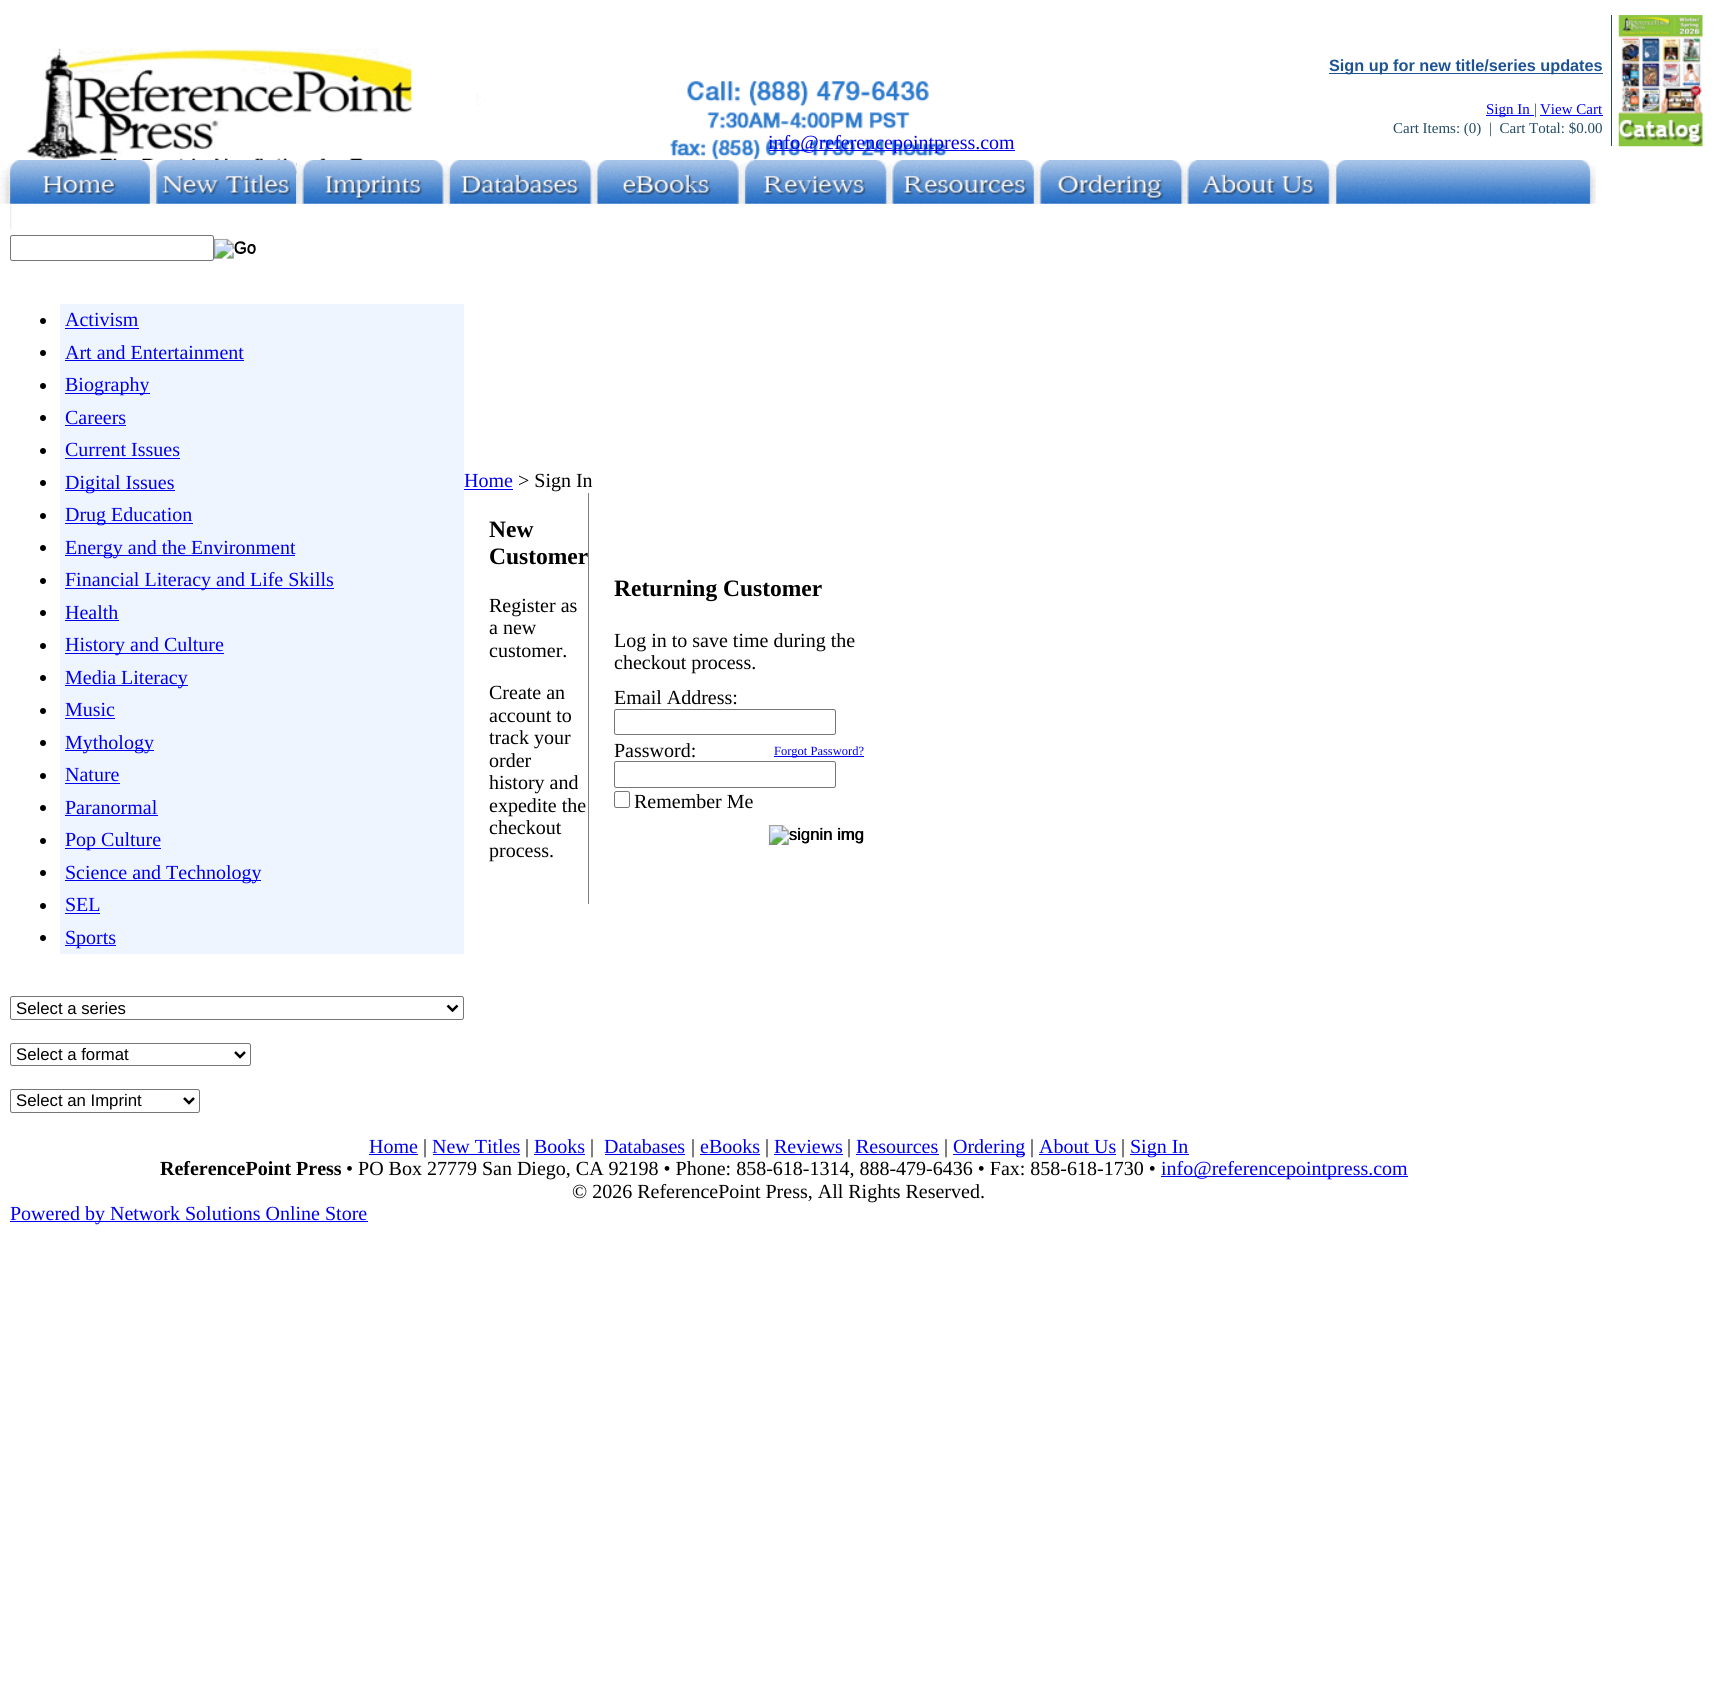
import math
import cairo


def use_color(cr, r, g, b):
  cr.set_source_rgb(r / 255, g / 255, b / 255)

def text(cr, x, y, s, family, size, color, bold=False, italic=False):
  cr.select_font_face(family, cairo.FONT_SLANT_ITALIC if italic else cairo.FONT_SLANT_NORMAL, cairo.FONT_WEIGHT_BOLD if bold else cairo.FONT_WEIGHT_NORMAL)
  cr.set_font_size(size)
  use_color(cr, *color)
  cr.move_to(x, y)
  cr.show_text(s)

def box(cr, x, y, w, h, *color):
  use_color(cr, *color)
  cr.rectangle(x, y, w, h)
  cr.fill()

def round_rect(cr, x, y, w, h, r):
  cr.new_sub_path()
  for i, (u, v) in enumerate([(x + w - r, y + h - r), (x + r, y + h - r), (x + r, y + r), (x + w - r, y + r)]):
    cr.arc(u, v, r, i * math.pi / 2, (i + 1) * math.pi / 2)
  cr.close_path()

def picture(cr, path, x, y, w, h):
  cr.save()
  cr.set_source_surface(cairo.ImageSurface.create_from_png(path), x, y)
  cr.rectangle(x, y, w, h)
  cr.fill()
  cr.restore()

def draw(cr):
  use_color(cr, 255, 255, 255)
  cr.paint()
  picture(cr, "img_01.png", 10, 48, 1520, 182)
  box(cr, 1611, 15, 1, 131, 34, 76, 102)
  picture(cr, "img_02.png", 1618, 15, 85, 132)
  box(cr, 1329, 73, 274, 1, 30, 83, 147)
  box(cr, 1486, 115, 48, 1, 0, 0, 238)
  box(cr, 1540, 115, 63, 1, 0, 0, 238)
  box(cr, 769, 150, 246, 1, 0, 0, 238)
  picture(cr, "img_03.png", 0, 160, 150, 44)
  picture(cr, "img_04.png", 150, 160, 147, 44)
  picture(cr, "img_05.png", 296, 160, 149, 44)
  picture(cr, "img_06.png", 445, 160, 149, 44)
  picture(cr, "img_07.png", 594, 160, 149, 44)
  picture(cr, "img_08.png", 742, 160, 150, 44)
  picture(cr, "img_09.png", 891, 160, 148, 44)
  picture(cr, "img_10.png", 1039, 160, 148, 44)
  picture(cr, "img_11.png", 1186, 160, 148, 44)
  picture(cr, "img_12.png", 1334, 160, 262, 44)
  round_rect(cr, 10.5, 235.5, 203, 25, 2)
  use_color(cr, 118, 118, 118)
  cr.set_line_width(1)
  cr.stroke()
  picture(cr, "img_13.png", 214, 238, 42, 21)
  box(cr, 60, 304, 404, 650, 239, 245, 255)
  use_color(cr, 0, 0, 0)
  cr.arc(43, 321, 3, 0, 2 * math.pi)
  cr.fill()
  box(cr, 65, 328, 74, 1, 0, 0, 238)
  use_color(cr, 0, 0, 0)
  cr.arc(43, 353, 3, 0, 2 * math.pi)
  cr.fill()
  box(cr, 65, 360, 179, 1, 0, 0, 238)
  use_color(cr, 0, 0, 0)
  cr.arc(43, 386, 3, 0, 2 * math.pi)
  cr.fill()
  box(cr, 65, 393, 85, 1, 0, 0, 238)
  use_color(cr, 0, 0, 0)
  cr.arc(43, 418, 3, 0, 2 * math.pi)
  cr.fill()
  box(cr, 65, 425, 61, 1, 0, 0, 238)
  use_color(cr, 0, 0, 0)
  cr.arc(43, 451, 3, 0, 2 * math.pi)
  cr.fill()
  box(cr, 65, 458, 115, 1, 0, 0, 238)
  use_color(cr, 0, 0, 0)
  cr.arc(43, 483, 3, 0, 2 * math.pi)
  cr.fill()
  box(cr, 65, 490, 110, 1, 0, 0, 238)
  use_color(cr, 0, 0, 0)
  cr.arc(43, 516, 3, 0, 2 * math.pi)
  cr.fill()
  box(cr, 65, 523, 128, 1, 0, 0, 238)
  use_color(cr, 0, 0, 0)
  cr.arc(43, 548, 3, 0, 2 * math.pi)
  cr.fill()
  box(cr, 65, 555, 230, 1, 0, 0, 238)
  use_color(cr, 0, 0, 0)
  cr.arc(43, 581, 3, 0, 2 * math.pi)
  cr.fill()
  box(cr, 65, 588, 269, 1, 0, 0, 238)
  use_color(cr, 0, 0, 0)
  cr.arc(43, 613, 3, 0, 2 * math.pi)
  cr.fill()
  box(cr, 65, 620, 54, 1, 0, 0, 238)
  use_color(cr, 0, 0, 0)
  cr.arc(43, 646, 3, 0, 2 * math.pi)
  cr.fill()
  box(cr, 65, 653, 159, 1, 0, 0, 238)
  use_color(cr, 0, 0, 0)
  cr.arc(43, 678, 3, 0, 2 * math.pi)
  cr.fill()
  box(cr, 65, 685, 123, 1, 0, 0, 238)
  use_color(cr, 0, 0, 0)
  cr.arc(43, 711, 3, 0, 2 * math.pi)
  cr.fill()
  box(cr, 65, 718, 50, 1, 0, 0, 238)
  use_color(cr, 0, 0, 0)
  cr.arc(43, 743, 3, 0, 2 * math.pi)
  cr.fill()
  box(cr, 65, 750, 89, 1, 0, 0, 238)
  use_color(cr, 0, 0, 0)
  cr.arc(43, 776, 3, 0, 2 * math.pi)
  cr.fill()
  box(cr, 65, 783, 55, 1, 0, 0, 238)
  use_color(cr, 0, 0, 0)
  cr.arc(43, 808, 3, 0, 2 * math.pi)
  cr.fill()
  box(cr, 65, 815, 93, 1, 0, 0, 238)
  use_color(cr, 0, 0, 0)
  cr.arc(43, 841, 3, 0, 2 * math.pi)
  cr.fill()
  box(cr, 65, 848, 96, 1, 0, 0, 238)
  use_color(cr, 0, 0, 0)
  cr.arc(43, 873, 3, 0, 2 * math.pi)
  cr.fill()
  box(cr, 65, 880, 196, 1, 0, 0, 238)
  use_color(cr, 0, 0, 0)
  cr.arc(43, 906, 3, 0, 2 * math.pi)
  cr.fill()
  box(cr, 65, 913, 35, 1, 0, 0, 238)
  use_color(cr, 0, 0, 0)
  cr.arc(43, 938, 3, 0, 2 * math.pi)
  cr.fill()
  box(cr, 65, 945, 51, 1, 0, 0, 238)
  round_rect(cr, 10.5, 996.5, 453, 23, 2)
  use_color(cr, 118, 118, 118)
  cr.stroke()
  cr.new_path()
  cr.move_to(447.5, 1005.5)
  cr.line_to(452.5, 1010.5)
  cr.line_to(457.5, 1005.5)
  use_color(cr, 0, 0, 0)
  cr.set_line_width(2.5)
  cr.stroke()
  round_rect(cr, 10.5, 1043.5, 240, 22, 2)
  use_color(cr, 118, 118, 118)
  cr.set_line_width(1)
  cr.stroke()
  cr.new_path()
  cr.move_to(235, 1052)
  cr.line_to(240, 1057)
  cr.line_to(245, 1052)
  use_color(cr, 0, 0, 0)
  cr.set_line_width(2.5)
  cr.stroke()
  round_rect(cr, 10.5, 1089.5, 189, 23, 2)
  use_color(cr, 118, 118, 118)
  cr.set_line_width(1)
  cr.stroke()
  cr.new_path()
  cr.move_to(184, 1098)
  cr.line_to(189, 1103)
  cr.line_to(194, 1098)
  use_color(cr, 0, 0, 0)
  cr.set_line_width(2.5)
  cr.stroke()
  box(cr, 464, 489, 49, 1, 0, 0, 238)
  box(cr, 588, 493, 1, 411, 128, 128, 128)
  round_rect(cr, 614.5, 709.5, 221, 25, 2)
  use_color(cr, 118, 118, 118)
  cr.set_line_width(1)
  cr.stroke()
  box(cr, 774, 756, 90, 1, 0, 0, 238)
  round_rect(cr, 614.5, 761.5, 221, 26, 2)
  use_color(cr, 118, 118, 118)
  cr.stroke()
  round_rect(cr, 614.5, 791.5, 15, 16, 2)
  cr.stroke()
  picture(cr, "img_14.png", 768, 825, 95, 20)
  box(cr, 369, 1154, 49, 1, 0, 0, 238)
  box(cr, 433, 1154, 87, 1, 0, 0, 238)
  box(cr, 534, 1154, 51, 1, 0, 0, 238)
  box(cr, 605, 1154, 80, 1, 0, 0, 238)
  box(cr, 700, 1154, 60, 1, 0, 0, 238)
  box(cr, 774, 1154, 69, 1, 0, 0, 238)
  box(cr, 856, 1154, 83, 1, 0, 0, 238)
  box(cr, 953, 1154, 72, 1, 0, 0, 238)
  box(cr, 1039, 1154, 77, 1, 0, 0, 238)
  box(cr, 1130, 1154, 59, 1, 0, 0, 238)
  box(cr, 1161, 1176, 247, 1, 0, 0, 238)
  box(cr, 10, 1221, 358, 1, 0, 0, 238)
  text(cr, 1329, 71, "Sign up for new title/series updates", "Liberation Sans", 16.25, (30, 83, 147), bold=True)
  text(cr, 1486, 114, "Sign In", "Liberation Serif", 15, (0, 0, 238))
  text(cr, 1534, 114, "|", "Liberation Serif", 15, (34, 76, 102))
  text(cr, 1540, 114, "View Cart", "Liberation Serif", 15, (0, 0, 238))
  text(cr, 1393, 133, "Cart Items: (0)", "Liberation Serif", 15, (34, 76, 102))
  text(cr, 1489, 133, "|  Cart Total: $0.00", "Liberation Serif", 15, (34, 76, 102))
  text(cr, 768, 149, "info@referencepointpress.com", "Liberation Serif", 20, (0, 0, 238))
  text(cr, 234, 253, "Go", "Liberation Sans", 16.75, (0, 0, 0))
  text(cr, 65, 326, "Activism", "Liberation Serif", 20, (0, 0, 238))
  text(cr, 65, 359, "Art and Entertainment", "Liberation Serif", 20, (0, 0, 238))
  text(cr, 65, 391, "Biography", "Liberation Serif", 20, (0, 0, 238))
  text(cr, 65, 424, "Careers", "Liberation Serif", 20, (0, 0, 238))
  text(cr, 65, 456, "Current Issues", "Liberation Serif", 20, (0, 0, 238))
  text(cr, 65, 489, "Digital Issues", "Liberation Serif", 20, (0, 0, 238))
  text(cr, 65, 521, "Drug Education", "Liberation Serif", 20, (0, 0, 238))
  text(cr, 65, 554, "Energy and the Environment", "Liberation Serif", 20, (0, 0, 238))
  text(cr, 65, 586, "Financial Literacy and Life Skills", "Liberation Serif", 20, (0, 0, 238))
  text(cr, 65, 619, "Health", "Liberation Serif", 20, (0, 0, 238))
  text(cr, 65, 651, "History and Culture", "Liberation Serif", 20, (0, 0, 238))
  text(cr, 65, 684, "Media Literacy", "Liberation Serif", 20, (0, 0, 238))
  text(cr, 65, 716, "Music", "Liberation Serif", 20, (0, 0, 238))
  text(cr, 65, 749, "Mythology", "Liberation Serif", 20, (0, 0, 238))
  text(cr, 65, 781, "Nature", "Liberation Serif", 20, (0, 0, 238))
  text(cr, 65, 814, "Paranormal", "Liberation Serif", 20, (0, 0, 238))
  text(cr, 65, 846, "Pop Culture", "Liberation Serif", 20, (0, 0, 238))
  text(cr, 65, 879, "Science and Technology", "Liberation Serif", 20, (0, 0, 238))
  text(cr, 65, 911, "SEL", "Liberation Serif", 20, (0, 0, 238))
  text(cr, 65, 944, "Sports", "Liberation Serif", 20, (0, 0, 238))
  text(cr, 16, 1014, "Select a series", "Liberation Sans", 16.75, (0, 0, 0))
  text(cr, 16, 1060, "Select a format", "Liberation Sans", 16.75, (0, 0, 0))
  text(cr, 16, 1106, "Select an Imprint", "Liberation Sans", 16.75, (0, 0, 0))
  text(cr, 464, 487, "Home", "Liberation Serif", 20, (0, 0, 238))
  text(cr, 518, 487, "> Sign In", "Liberation Serif", 20, (0, 0, 0))
  text(cr, 489, 537, "New", "Liberation Serif", 23.5, (0, 0, 0), bold=True)
  text(cr, 489, 564, "Customer", "Liberation Serif", 23.5, (0, 0, 0), bold=True)
  text(cr, 489, 612, "Register as", "Liberation Serif", 20, (0, 0, 0))
  text(cr, 489, 634, "a new", "Liberation Serif", 20, (0, 0, 0))
  text(cr, 489, 657, "customer.", "Liberation Serif", 20, (0, 0, 0))
  text(cr, 489, 699, "Create an", "Liberation Serif", 20, (0, 0, 0))
  text(cr, 489, 722, "account to", "Liberation Serif", 20, (0, 0, 0))
  text(cr, 489, 744, "track your", "Liberation Serif", 20, (0, 0, 0))
  text(cr, 489, 767, "order", "Liberation Serif", 20, (0, 0, 0))
  text(cr, 489, 789, "history and", "Liberation Serif", 20, (0, 0, 0))
  text(cr, 489, 812, "expedite the", "Liberation Serif", 20, (0, 0, 0))
  text(cr, 489, 834, "checkout", "Liberation Serif", 20, (0, 0, 0))
  text(cr, 489, 857, "process.", "Liberation Serif", 20, (0, 0, 0))
  text(cr, 614, 596, "Returning Customer", "Liberation Serif", 23.5, (0, 0, 0), bold=True)
  text(cr, 614, 647, "Log in to save time during the", "Liberation Serif", 20, (0, 0, 0))
  text(cr, 614, 669, "checkout process.", "Liberation Serif", 20, (0, 0, 0))
  text(cr, 614, 704, "Email Address:", "Liberation Serif", 20, (0, 0, 0))
  text(cr, 614, 757, "Password:", "Liberation Serif", 20, (0, 0, 0))
  text(cr, 774, 755, "Forgot Password?", "Liberation Serif", 12.5, (0, 0, 238))
  text(cr, 634, 808, "Remember Me", "Liberation Serif", 20, (0, 0, 0))
  text(cr, 789, 840, "signin img", "Liberation Sans", 16.75, (0, 0, 0))
  text(cr, 369, 1153, "Home", "Liberation Serif", 20, (0, 0, 238))
  text(cr, 423, 1153, "|", "Liberation Serif", 20, (0, 0, 0))
  text(cr, 432, 1153, "New Titles", "Liberation Serif", 20, (0, 0, 238))
  text(cr, 525, 1153, "|", "Liberation Serif", 20, (0, 0, 0))
  text(cr, 534, 1153, "Books", "Liberation Serif", 20, (0, 0, 238))
  text(cr, 590, 1153, "|", "Liberation Serif", 20, (0, 0, 0))
  text(cr, 604, 1153, "Databases", "Liberation Serif", 20, (0, 0, 238))
  text(cr, 691, 1153, "|", "Liberation Serif", 20, (0, 0, 0))
  text(cr, 700, 1153, "eBooks", "Liberation Serif", 20, (0, 0, 238))
  text(cr, 765, 1153, "|", "Liberation Serif", 20, (0, 0, 0))
  text(cr, 774, 1153, "Reviews", "Liberation Serif", 20, (0, 0, 238))
  text(cr, 847, 1153, "|", "Liberation Serif", 20, (0, 0, 0))
  text(cr, 856, 1153, "Resources", "Liberation Serif", 20, (0, 0, 238))
  text(cr, 944, 1153, "|", "Liberation Serif", 20, (0, 0, 0))
  text(cr, 953, 1153, "Ordering", "Liberation Serif", 20, (0, 0, 238))
  text(cr, 1030, 1153, "|", "Liberation Serif", 20, (0, 0, 0))
  text(cr, 1039, 1153, "About Us", "Liberation Serif", 20, (0, 0, 238))
  text(cr, 1121, 1153, "|", "Liberation Serif", 20, (0, 0, 0))
  text(cr, 1130, 1153, "Sign In", "Liberation Serif", 20, (0, 0, 238))
  text(cr, 160, 1175, "ReferencePoint Press", "Liberation Serif", 20, (0, 0, 0), bold=True)
  text(cr, 346, 1175, "• PO Box 27779 San Diego, CA 92198 • Phone: 858-618-1314, 888-479-6436 • Fax: 858-618-1730 •", "Liberation Serif", 20, (0, 0, 0))
  text(cr, 1161, 1175, "info@referencepointpress.com", "Liberation Serif", 20, (0, 0, 238))
  text(cr, 572, 1198, "© 2026 ReferencePoint Press, All Rights Reserved.", "Liberation Serif", 20, (0, 0, 0))
  text(cr, 10, 1220, "Powered by Network Solutions Online Store", "Liberation Serif", 20, (0, 0, 238))


surface = cairo.ImageSurface(cairo.FORMAT_RGB24, 1715, 1687)
cr = cairo.Context(surface)
options = cairo.FontOptions()
options.set_hint_metrics(cairo.HINT_METRICS_OFF)
options.set_hint_style(cairo.HINT_STYLE_NONE)
cr.set_font_options(options)
cr.set_miter_limit(4)
draw(cr)
surface.write_to_png("out.png")
